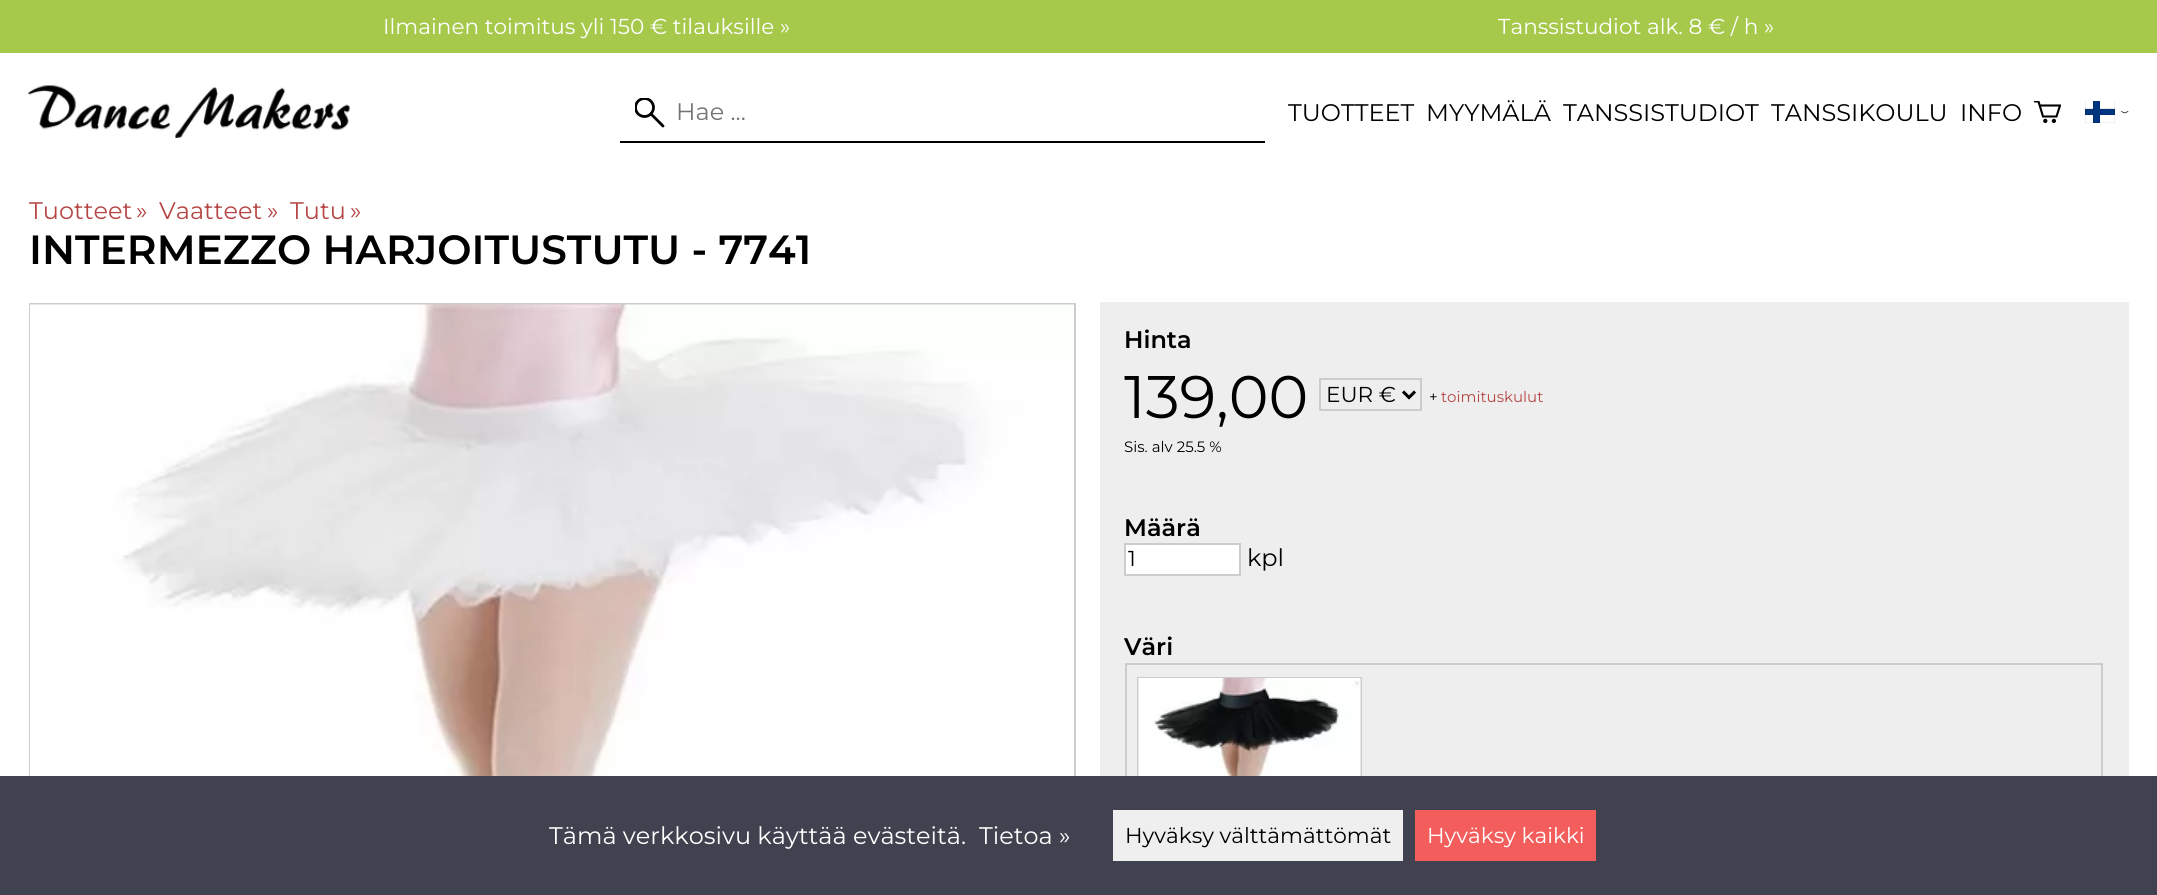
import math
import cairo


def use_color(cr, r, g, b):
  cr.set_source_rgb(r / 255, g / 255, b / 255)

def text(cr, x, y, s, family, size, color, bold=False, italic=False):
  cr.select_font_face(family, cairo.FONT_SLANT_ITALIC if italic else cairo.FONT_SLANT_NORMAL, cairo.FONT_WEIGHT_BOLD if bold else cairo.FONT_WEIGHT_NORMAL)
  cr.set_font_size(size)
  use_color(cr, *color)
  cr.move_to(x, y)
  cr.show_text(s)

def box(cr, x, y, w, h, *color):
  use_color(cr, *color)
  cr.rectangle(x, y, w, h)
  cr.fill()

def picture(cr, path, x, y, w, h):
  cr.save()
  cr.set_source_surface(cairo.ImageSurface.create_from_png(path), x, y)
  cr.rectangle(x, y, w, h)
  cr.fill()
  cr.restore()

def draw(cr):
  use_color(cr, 255, 255, 255)
  cr.paint()
  box(cr, 0, 0, 2157, 53, 166, 200, 75)
  picture(cr, "img_01.png", 28, 85, 322, 53)
  cr.new_path()
  cr.move_to(663, 126)
  cr.line_to(651, 114)
  use_color(cr, 0, 0, 0)
  cr.set_line_width(2.8)
  cr.set_line_cap(cairo.LINE_CAP_ROUND)
  cr.stroke()
  cr.save()
  cr.rectangle(635, 98, 30, 30)
  cr.clip()
  cr.arc(644.5, 107.5, 9, 0, 2 * math.pi)
  cr.set_line_cap(cairo.LINE_CAP_BUTT)
  cr.stroke()
  cr.restore()
  box(cr, 620, 141, 645, 2, 0, 0, 0)
  cr.save()
  cr.rectangle(2034, 101, 27, 22)
  cr.clip()
  cr.new_path()
  cr.move_to(2040, 105.5)
  cr.line_to(2060, 105.5)
  cr.line_to(2056.5, 116.5)
  cr.line_to(2043, 116.5)
  cr.line_to(2038.5, 101.5)
  cr.line_to(2035, 101.5)
  cr.set_line_width(2.1)
  cr.stroke()
  cr.restore()
  cr.arc(2045.3, 120.9, 1.1, 0, 2 * math.pi)
  cr.set_line_width(2.1)
  cr.set_line_cap(cairo.LINE_CAP_BUTT)
  cr.stroke()
  cr.arc(2053.9, 120.9, 1.1, 0, 2 * math.pi)
  cr.stroke()
  picture(cr, "img_02.png", 2085, 101, 30, 22)
  cr.new_path()
  cr.move_to(2121.5, 111.5)
  cr.line_to(2124.5, 113)
  cr.line_to(2128, 111.5)
  cr.set_line_width(0.7)
  cr.set_line_cap(cairo.LINE_CAP_ROUND)
  cr.stroke()
  cr.rectangle(30, 304, 1045, 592)
  use_color(cr, 204, 204, 204)
  cr.set_line_width(2)
  cr.set_line_cap(cairo.LINE_CAP_BUTT)
  cr.stroke()
  picture(cr, "img_03.png", 30, 304, 1044, 472)
  box(cr, 1100, 302, 1029, 474, 238, 238, 238)
  cr.rectangle(1320, 379, 101, 31)
  use_color(cr, 204, 204, 204)
  cr.stroke()
  cr.new_path()
  cr.move_to(1403, 391.5)
  cr.line_to(1409, 397.5)
  cr.line_to(1415, 391.5)
  use_color(cr, 0, 0, 0)
  cr.set_line_width(3)
  cr.stroke()
  use_color(cr, 255, 255, 255)
  cr.rectangle(1125, 544, 115, 31)
  cr.fill_preserve()
  use_color(cr, 204, 204, 204)
  cr.set_line_width(2)
  cr.stroke()
  cr.rectangle(1138, 678, 223, 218)
  cr.stroke()
  picture(cr, "img_04.png", 1138, 678, 223, 98)
  cr.rectangle(1126, 664, 976, 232)
  cr.stroke()
  box(cr, 0, 776, 2157, 119, 65, 66, 79)
  box(cr, 1113, 810, 290, 51, 239, 239, 239)
  box(cr, 1415, 810, 181, 51, 243, 94, 92)
  text(cr, 383, 34, "Ilmainen toimitus yli 150 € tilauksille »", "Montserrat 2 Thin", 21.6, (255, 255, 255))
  text(cr, 1498, 34, "Tanssistudiot alk. 8 € / h »", "Montserrat 2 Thin", 21.6, (255, 255, 255))
  text(cr, 676, 120, "Hae ...", "Montserrat 2 Thin", 24, (117, 117, 117))
  text(cr, 1288, 121, "TUOTTEET", "Montserrat 2 Thin", 24, (0, 0, 0))
  text(cr, 1426, 121, "MYYMÄLÄ", "Montserrat 2 Thin", 24, (0, 0, 0))
  text(cr, 1563, 121, "TANSSISTUDIOT", "Montserrat 2 Thin", 24, (0, 0, 0))
  text(cr, 1771, 121, "TANSSIKOULU", "Montserrat 2 Thin", 24, (0, 0, 0))
  text(cr, 1960, 121, "INFO", "Montserrat 2 Thin", 24, (0, 0, 0))
  text(cr, 29, 219, "Tuotteet", "Montserrat 2 Thin", 24, (182, 70, 69))
  text(cr, 136, 219, "»", "Montserrat 2 Thin", 24, (182, 70, 69))
  text(cr, 159, 219, "Vaatteet", "Montserrat 2 Thin", 24, (182, 70, 69))
  text(cr, 267, 219, "»", "Montserrat 2 Thin", 24, (182, 70, 69))
  text(cr, 290, 219, "Tutu", "Montserrat 2 Thin", 24, (182, 70, 69))
  text(cr, 350, 219, "»", "Montserrat 2 Thin", 24, (182, 70, 69))
  text(cr, 29, 264, "INTERMEZZO HARJOITUSTUTU - 7741", "Montserrat Thin", 40.75, (0, 0, 0))
  text(cr, 1124, 348, "Hinta", "Montserrat Thin", 24, (0, 0, 0))
  text(cr, 1124, 418, "139,00", "Montserrat 2 Thin", 60, (0, 0, 0))
  text(cr, 1326, 402, "EUR €", "Montserrat 2 Thin", 21.6, (0, 0, 0))
  text(cr, 1429, 402, "+", "Montserrat 2 Thin", 15, (0, 0, 0))
  text(cr, 1441, 402, "toimituskulut", "Montserrat 2 Thin", 15, (182, 70, 69))
  text(cr, 1124, 452, "Sis. alv 25.5 %", "Montserrat 2 Thin", 15, (0, 0, 0))
  text(cr, 1124, 536, "Määrä", "Montserrat Thin", 24, (0, 0, 0))
  text(cr, 1128, 566, "1", "Montserrat 2 Thin", 21.6, (0, 0, 0))
  text(cr, 1247, 566, "kpl", "Montserrat 2 Thin", 24, (0, 0, 0))
  text(cr, 1124, 655, "Väri", "Montserrat Thin", 24, (0, 0, 0))
  text(cr, 549, 844, "Tämä verkkosivu käyttää evästeitä.", "Montserrat 2 Thin", 24, (255, 255, 255))
  text(cr, 979, 844, "Tietoa »", "Montserrat 2 Thin", 24, (255, 255, 255))
  text(cr, 1125, 843, "Hyväksy välttämättömät", "Montserrat 2 Thin", 21.6, (0, 0, 0))
  text(cr, 1427, 843, "Hyväksy kaikki", "Montserrat 2 Thin", 21.6, (255, 255, 255))


surface = cairo.ImageSurface(cairo.FORMAT_RGB24, 2157, 895)
cr = cairo.Context(surface)
options = cairo.FontOptions()
options.set_hint_metrics(cairo.HINT_METRICS_OFF)
options.set_hint_style(cairo.HINT_STYLE_NONE)
cr.set_font_options(options)
cr.set_miter_limit(4)
draw(cr)
surface.write_to_png("out.png")
